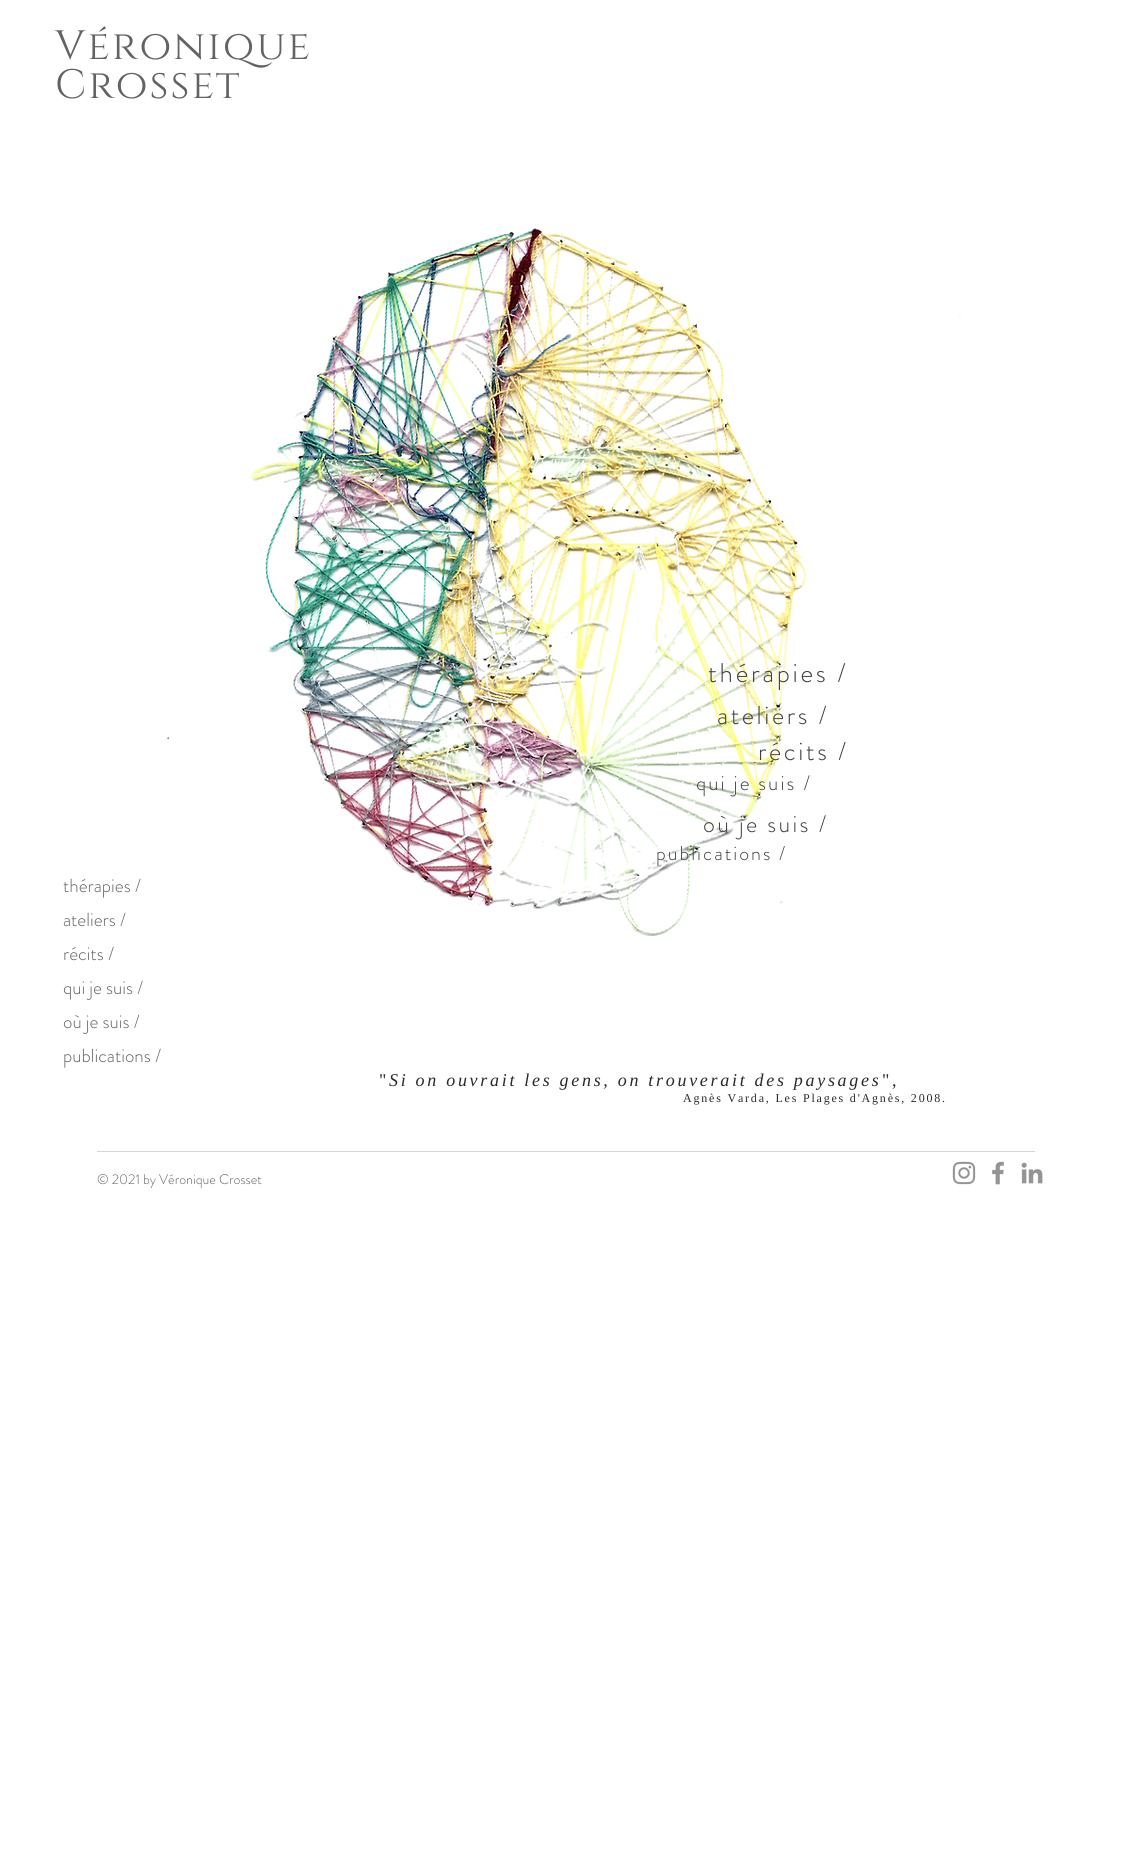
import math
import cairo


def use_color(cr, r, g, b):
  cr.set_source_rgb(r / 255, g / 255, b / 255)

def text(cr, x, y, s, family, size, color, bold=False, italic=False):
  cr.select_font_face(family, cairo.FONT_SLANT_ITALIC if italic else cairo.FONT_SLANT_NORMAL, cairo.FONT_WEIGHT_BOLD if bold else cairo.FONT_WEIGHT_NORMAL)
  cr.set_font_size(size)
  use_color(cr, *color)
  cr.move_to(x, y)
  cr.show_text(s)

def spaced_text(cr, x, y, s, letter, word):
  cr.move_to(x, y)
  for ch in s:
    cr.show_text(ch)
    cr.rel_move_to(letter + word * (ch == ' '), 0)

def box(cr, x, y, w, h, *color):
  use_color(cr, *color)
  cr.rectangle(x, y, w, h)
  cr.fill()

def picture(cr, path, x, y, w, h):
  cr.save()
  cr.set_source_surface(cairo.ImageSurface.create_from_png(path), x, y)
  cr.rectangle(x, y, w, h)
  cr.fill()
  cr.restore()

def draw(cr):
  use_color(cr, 255, 255, 255)
  cr.paint()
  picture(cr, "img_01.png", 167, 228, 800, 708)
  box(cr, 97, 1151, 938, 1, 214, 214, 212)
  picture(cr, "img_02.png", 952, 1161, 24, 24)
  picture(cr, "img_03.png", 992, 1161, 12, 24)
  picture(cr, "img_04.png", 1021, 1162, 22, 22)
  cr.select_font_face("Cinzel")
  cr.set_font_size(41)
  use_color(cr, 99, 99, 99)
  spaced_text(cr, 55, 59, "Véronique", 2, 0)
  spaced_text(cr, 55, 98, "Crosset", 2, 0)
  text(cr, 63, 892, "thérapies /", "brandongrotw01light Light", 19, (99, 99, 99))
  text(cr, 63, 926, "ateliers /", "brandongrotw01light Light", 19, (99, 99, 99))
  text(cr, 63, 960, "récits /", "brandongrotw01light Light", 19, (99, 99, 99))
  text(cr, 63, 994, "qui je suis /", "brandongrotw01light Light", 19, (99, 99, 99))
  text(cr, 63, 1028, "où je suis /", "brandongrotw01light Light", 19, (99, 99, 99))
  text(cr, 63, 1062, "publications /", "brandongrotw01light Light", 19, (99, 99, 99))
  cr.set_font_size(27)
  use_color(cr, 65, 65, 65)
  spaced_text(cr, 708, 682, "thérapies /", 2.7, 0)
  cr.set_font_size(26)
  spaced_text(cr, 717, 724, "ateliers /", 2.6, 0)
  spaced_text(cr, 758, 760, "récits /", 2.6, 0)
  cr.set_font_size(21)
  spaced_text(cr, 696, 790, "qui je suis /", 2.1, 0)
  cr.set_font_size(24)
  spaced_text(cr, 703, 832, "où je suis /", 2.4, 0)
  cr.set_font_size(20)
  spaced_text(cr, 656, 860, "publications /", 2, 0)
  cr.select_font_face("Liberation Serif")
  cr.set_font_size(18)
  use_color(cr, 41, 41, 41)
  spaced_text(cr, 379, 1086, "\"", 2.7, 0)
  cr.select_font_face("Liberation Serif", cairo.FONT_SLANT_ITALIC)
  spaced_text(cr, 389, 1086, "Si on ouvrait les gens, on trouverait des paysages", 2.7, 0)
  cr.select_font_face("Liberation Serif")
  spaced_text(cr, 882, 1086, "\",", 2.7, 0)
  cr.set_font_size(12)
  spaced_text(cr, 683, 1102, "Agnès Varda, Les Plages d'Agnès, 2008.", 1.8, 0)
  text(cr, 97, 1184, "© 2021 by Véronique Crosset", "brandongrotw01light Light", 14, (99, 99, 99))


surface = cairo.ImageSurface(cairo.FORMAT_RGB24, 1128, 1872)
cr = cairo.Context(surface)
options = cairo.FontOptions()
options.set_hint_metrics(cairo.HINT_METRICS_OFF)
options.set_hint_style(cairo.HINT_STYLE_NONE)
cr.set_font_options(options)
cr.set_miter_limit(4)
draw(cr)
surface.write_to_png("out.png")
